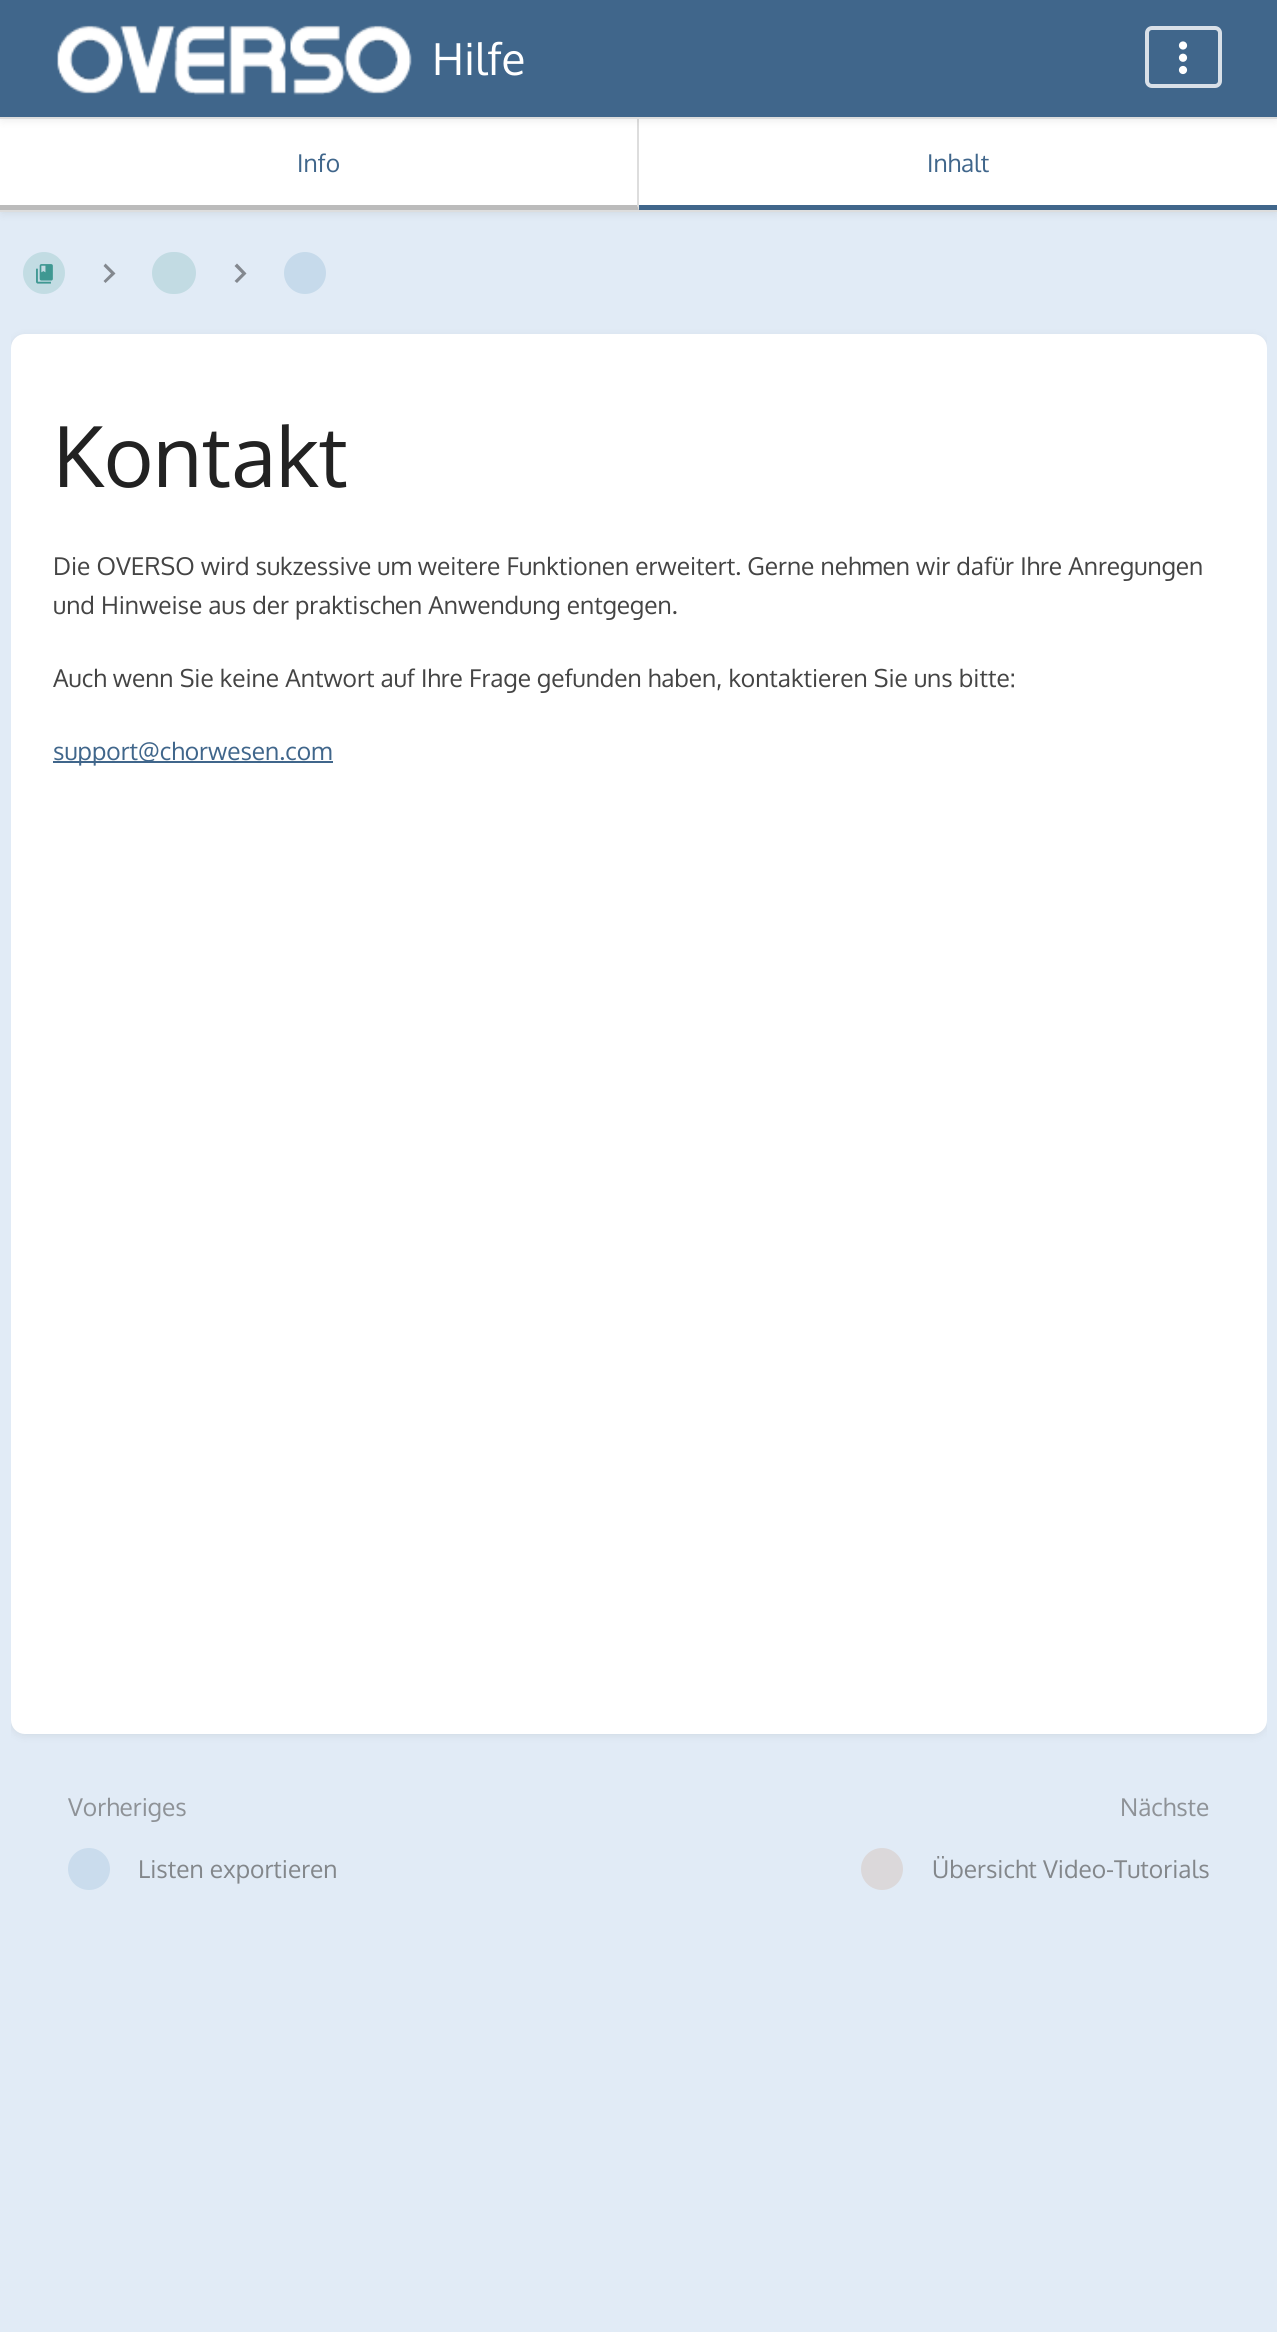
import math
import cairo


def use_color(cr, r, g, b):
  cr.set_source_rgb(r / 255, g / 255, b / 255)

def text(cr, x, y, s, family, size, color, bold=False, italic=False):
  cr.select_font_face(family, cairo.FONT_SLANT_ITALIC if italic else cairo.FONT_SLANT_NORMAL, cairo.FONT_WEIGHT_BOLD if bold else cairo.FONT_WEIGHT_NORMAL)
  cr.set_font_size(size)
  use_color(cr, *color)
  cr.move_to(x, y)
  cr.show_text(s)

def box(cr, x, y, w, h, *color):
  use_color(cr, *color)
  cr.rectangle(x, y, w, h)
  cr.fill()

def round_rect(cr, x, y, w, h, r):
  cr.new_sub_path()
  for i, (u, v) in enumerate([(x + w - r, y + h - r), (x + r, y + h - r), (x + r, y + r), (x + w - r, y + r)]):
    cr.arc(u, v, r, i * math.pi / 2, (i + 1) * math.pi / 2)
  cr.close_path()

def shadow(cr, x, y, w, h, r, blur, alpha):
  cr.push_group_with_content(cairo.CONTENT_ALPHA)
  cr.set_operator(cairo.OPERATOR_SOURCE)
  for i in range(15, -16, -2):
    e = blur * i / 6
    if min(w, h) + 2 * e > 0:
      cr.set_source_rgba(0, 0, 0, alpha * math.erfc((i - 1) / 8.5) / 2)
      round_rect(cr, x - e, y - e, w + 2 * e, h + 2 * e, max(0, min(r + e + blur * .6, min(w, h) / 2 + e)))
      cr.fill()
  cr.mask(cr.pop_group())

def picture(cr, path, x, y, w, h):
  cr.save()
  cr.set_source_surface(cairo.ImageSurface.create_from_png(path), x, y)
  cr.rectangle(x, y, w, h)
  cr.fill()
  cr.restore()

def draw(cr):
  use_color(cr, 225, 235, 246)
  cr.paint()
  use_color(cr, 0, 0, 0)
  shadow(cr, 2, 123, 1274, 89, 0, 5, 0.1)
  box(cr, 0, 119, 1277, 91, 255, 255, 255)
  use_color(cr, 221, 221, 221)
  cr.new_path()
  cr.move_to(639, 119)
  cr.line_to(639, 210)
  cr.line_to(637, 205)
  cr.line_to(637, 119)
  cr.close_path()
  cr.fill()
  use_color(cr, 0, 0, 0)
  shadow(cr, 2, 4, 1274, 115, 0, 5, 0.1)
  box(cr, 0, 0, 1277, 117, 64, 102, 139)
  box(cr, 0, 117, 1277, 2, 221, 221, 221)
  picture(cr, "img_01.png", 57, 25, 355, 70)
  round_rect(cr, 1147, 28, 73, 58, 5)
  use_color(cr, 217, 224, 232)
  cr.set_line_width(4)
  cr.stroke()
  picture(cr, "img_02.png", 1178, 41, 10, 34)
  box(cr, 0, 210, 1277, 2, 221, 221, 221)
  use_color(cr, 187, 187, 187)
  cr.new_path()
  cr.move_to(639, 210)
  cr.line_to(0, 210)
  cr.line_to(0, 205)
  cr.line_to(637, 205)
  cr.close_path()
  cr.fill()
  box(cr, 639, 205, 638, 5, 64, 102, 139)
  picture(cr, "img_03.png", 36, 264, 17, 20)
  cr.set_source_rgba(0.027, 0.482, 0.439, 0.14)
  cr.arc(44, 273, 21, 0, 2 * math.pi)
  cr.fill()
  use_color(cr, 131, 136, 143)
  cr.new_path()
  cr.move_to(105.5, 263.5)
  cr.line_to(103.5, 266)
  cr.line_to(111, 273.5)
  cr.line_to(103.5, 281)
  cr.line_to(105.5, 283)
  cr.line_to(115.5, 273.5)
  cr.close_path()
  cr.fill()
  use_color(cr, 194, 219, 227)
  round_rect(cr, 152, 252, 44, 42, 21)
  cr.fill()
  use_color(cr, 131, 136, 143)
  cr.new_path()
  cr.move_to(237, 263.5)
  cr.line_to(234.5, 266)
  cr.line_to(242, 273.5)
  cr.line_to(234.5, 281)
  cr.line_to(237, 283)
  cr.line_to(246.5, 273.5)
  cr.close_path()
  cr.fill()
  use_color(cr, 198, 218, 235)
  cr.arc(305, 273, 21, 0, 2 * math.pi)
  cr.fill()
  cr.save()
  cr.rectangle(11, 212, 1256, 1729)
  cr.clip()
  use_color(cr, 0, 0, 0)
  shadow(cr, 12, 338, 1253, 1396, 12, 5, 0.1)
  cr.restore()
  use_color(cr, 255, 255, 255)
  round_rect(cr, 11, 334, 1256, 1400, 14)
  cr.fill()
  box(cr, 53, 761, 280, 2, 64, 102, 139)
  use_color(cr, 202, 220, 237)
  cr.arc(89, 1869, 21, 0, 2 * math.pi)
  cr.fill()
  use_color(cr, 219, 216, 218)
  cr.arc(882, 1869, 21, 0, 2 * math.pi)
  cr.fill()
  text(cr, 432, 75, "Hilfe", "Oxygen", 44, (255, 255, 255))
  text(cr, 297, 172, "Info", "Oxygen", 24.5, (64, 102, 139))
  text(cr, 927, 172, "Inhalt", "Oxygen", 24.5, (64, 102, 139))
  text(cr, 53, 487, "Kontakt", "Oxygen", 84, (34, 34, 34))
  text(cr, 53, 575, "Die OVERSO wird sukzessive um weitere Funktionen erweitert. Gerne nehmen wir dafür Ihre Anregungen", "Oxygen", 24.5, (68, 68, 68))
  text(cr, 53, 614, "und Hinweise aus der praktischen Anwendung entgegen.", "Oxygen", 24.5, (68, 68, 68))
  text(cr, 53, 687, "Auch wenn Sie keine Antwort auf Ihre Frage gefunden haben, kontaktieren Sie uns bitte:", "Oxygen", 24.5, (68, 68, 68))
  text(cr, 53, 760, "support@chorwesen.com", "Oxygen", 24.5, (64, 102, 139))
  text(cr, 68, 1816, "Vorheriges", "Oxygen", 24.5, (142, 146, 151))
  text(cr, 138, 1878, "Listen exportieren", "Oxygen", 24.5, (131, 135, 139))
  text(cr, 1120, 1816, "Nächste", "Oxygen", 24.5, (142, 146, 151))
  text(cr, 932, 1878, "Übersicht Video-Tutorials", "Oxygen", 24.5, (131, 135, 139))


surface = cairo.ImageSurface(cairo.FORMAT_RGB24, 1277, 2332)
cr = cairo.Context(surface)
options = cairo.FontOptions()
options.set_hint_metrics(cairo.HINT_METRICS_OFF)
options.set_hint_style(cairo.HINT_STYLE_NONE)
cr.set_font_options(options)
cr.set_miter_limit(4)
draw(cr)
surface.write_to_png("out.png")
